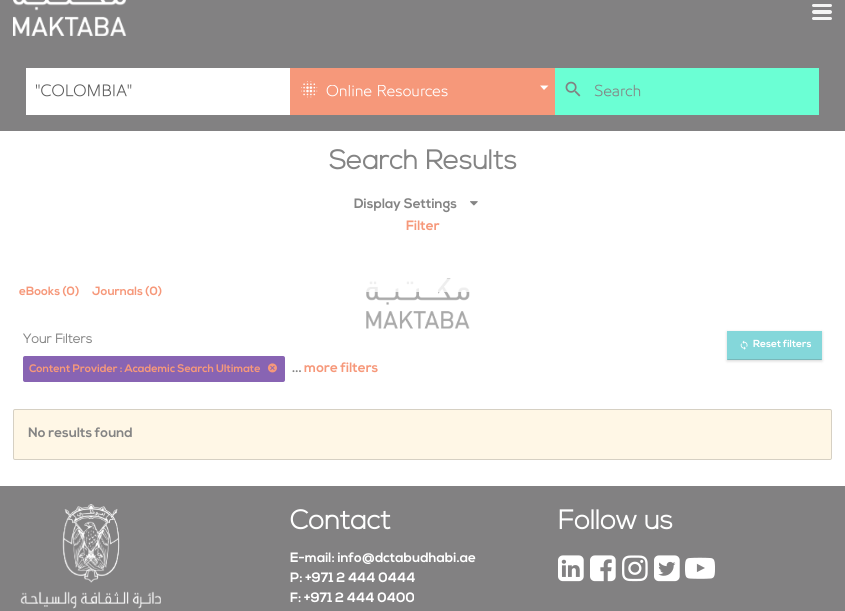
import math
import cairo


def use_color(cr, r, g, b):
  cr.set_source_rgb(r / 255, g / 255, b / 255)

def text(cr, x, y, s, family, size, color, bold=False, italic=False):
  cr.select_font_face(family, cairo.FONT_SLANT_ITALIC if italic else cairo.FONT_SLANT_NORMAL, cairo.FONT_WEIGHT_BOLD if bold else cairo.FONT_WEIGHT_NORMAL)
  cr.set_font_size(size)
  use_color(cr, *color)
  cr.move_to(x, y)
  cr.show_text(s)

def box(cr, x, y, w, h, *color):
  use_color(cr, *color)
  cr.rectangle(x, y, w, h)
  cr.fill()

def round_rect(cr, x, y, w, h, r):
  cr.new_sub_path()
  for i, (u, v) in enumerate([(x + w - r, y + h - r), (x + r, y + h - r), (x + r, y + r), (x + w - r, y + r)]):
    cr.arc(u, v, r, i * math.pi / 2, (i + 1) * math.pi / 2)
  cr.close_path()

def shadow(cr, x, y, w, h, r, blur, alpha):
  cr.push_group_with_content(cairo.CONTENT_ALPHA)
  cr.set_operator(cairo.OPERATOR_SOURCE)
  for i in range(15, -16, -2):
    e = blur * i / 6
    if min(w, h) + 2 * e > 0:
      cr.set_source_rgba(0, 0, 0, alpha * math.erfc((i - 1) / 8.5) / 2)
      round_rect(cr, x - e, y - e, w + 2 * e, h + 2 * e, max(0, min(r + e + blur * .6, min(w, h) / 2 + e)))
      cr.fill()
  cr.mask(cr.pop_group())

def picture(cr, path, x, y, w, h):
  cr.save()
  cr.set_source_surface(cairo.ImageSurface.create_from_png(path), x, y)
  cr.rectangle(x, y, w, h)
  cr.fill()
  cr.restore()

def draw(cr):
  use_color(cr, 255, 255, 255)
  cr.paint()
  box(cr, 0, 0, 845, 131, 130, 129, 130)
  picture(cr, "img_01.png", 13, 0, 114, 36)
  use_color(cr, 244, 244, 244)
  round_rect(cr, 812, 4, 20, 3, 1.5)
  cr.fill()
  round_rect(cr, 812, 10, 20, 4, 2)
  cr.fill()
  round_rect(cr, 812, 17, 20, 3, 1.5)
  cr.fill()
  box(cr, 26, 68, 264, 47, 255, 255, 255)
  box(cr, 290, 68, 265, 47, 246, 152, 122)
  picture(cr, "img_02.png", 301, 81, 17, 17)
  use_color(cr, 255, 255, 255)
  cr.new_path()
  cr.move_to(540, 85.5)
  cr.line_to(544, 90)
  cr.line_to(548.5, 85.5)
  cr.close_path()
  cr.fill()
  box(cr, 555, 68, 264, 47, 107, 255, 212)
  picture(cr, "img_03.png", 565, 81, 16, 16)
  picture(cr, "img_04.png", 470, 201, 8, 5)
  use_color(cr, 87, 87, 87)
  shadow(cr, 727, 332, 95, 29, 0, 1.5, 0.25)
  box(cr, 727, 331, 95, 29, 132, 215, 218)
  use_color(cr, 121, 183, 185)
  cr.new_path()
  cr.move_to(822, 360)
  cr.line_to(727, 360)
  cr.line_to(728, 359)
  cr.line_to(821, 359)
  cr.close_path()
  cr.fill()
  picture(cr, "img_05.png", 740, 340, 8, 10)
  use_color(cr, 136, 100, 179)
  round_rect(cr, 23, 356, 262, 26, 2)
  cr.fill()
  picture(cr, "img_06.png", 267, 363, 10, 10)
  use_color(cr, 255, 247, 230)
  round_rect(cr, 13, 409, 819, 51, 2)
  cr.fill()
  round_rect(cr, 13.5, 409.5, 818, 50, 1.5)
  cr.set_source_rgba(0.365, 0.365, 0.365, 0.25)
  cr.set_line_width(1)
  cr.stroke()
  box(cr, 0, 486, 845, 125, 130, 129, 130)
  picture(cr, "img_07.png", 20, 504, 141, 105)
  picture(cr, "img_08.png", 558, 555, 26, 27)
  picture(cr, "img_09.png", 590, 555, 26, 27)
  picture(cr, "img_10.png", 622, 555, 26, 27)
  picture(cr, "img_11.png", 654, 555, 26, 27)
  picture(cr, "img_12.png", 685, 557, 30, 22)
  picture(cr, "img_13.png", 366, 278, 104, 51)
  cr.set_source_rgba(1, 1, 1, 0.8)
  cr.rectangle(366, 279, 104, 13)
  cr.fill()
  text(cr, 35, 96, "\"COLOMBIA\"", "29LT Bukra", 14, (93, 93, 93))
  cr.save()
  cr.rectangle(326, 85, 204, 13)
  cr.clip()
  text(cr, 326, 96, "Online Resources", "29LT Bukra", 13.6, (255, 255, 255))
  cr.restore()
  text(cr, 594, 96, "Search", "29LT Bukra", 13.6, (132, 132, 132))
  text(cr, 329, 169, "Search Results", "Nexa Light", 27, (132, 132, 132), bold=True)
  text(cr, 354, 208, "Display Settings", "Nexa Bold", 13.6, (132, 132, 132), bold=True)
  text(cr, 406, 230, "Filter", "Nexa Bold", 13.6, (246, 152, 122), bold=True)
  text(cr, 19, 295, "eBooks (0)", "Nexa Bold", 12, (246, 152, 122), bold=True)
  text(cr, 92, 295, "Journals (0)", "Nexa Bold", 12, (246, 152, 122), bold=True)
  text(cr, 23, 343, "Your Filters", "Nexa Light", 13, (132, 132, 132), bold=True)
  text(cr, 753, 347, "Reset filters", "Nexa Bold", 10.25, (255, 255, 255), bold=True)
  text(cr, 29, 372, "Content Provider : Academic Search Ultimate", "Nexa Bold", 10.9, (246, 152, 122), bold=True)
  text(cr, 292, 372, "...", "Nexa Bold", 13.6, (132, 132, 132), bold=True)
  text(cr, 304, 372, "more filters", "Nexa Bold", 13.6, (246, 152, 122), bold=True)
  text(cr, 28, 437, "No results found", "Nexa Bold", 13.6, (132, 132, 132), bold=True)
  text(cr, 290, 529, "Contact", "Nexa Light", 27, (255, 255, 255), bold=True)
  text(cr, 290, 562, "E-mail: info@dctabudhabi.ae", "Nexa Bold", 13.6, (255, 255, 255), bold=True)
  text(cr, 290, 582, "P: +971 2 444 0444", "Nexa Bold", 13.6, (255, 255, 255), bold=True)
  text(cr, 290, 602, "F: +971 2 444 0400", "Nexa Bold", 13.6, (255, 255, 255), bold=True)
  text(cr, 558, 529, "Follow us", "Nexa Light", 27, (255, 255, 255), bold=True)


surface = cairo.ImageSurface(cairo.FORMAT_RGB24, 845, 611)
cr = cairo.Context(surface)
options = cairo.FontOptions()
options.set_hint_metrics(cairo.HINT_METRICS_OFF)
options.set_hint_style(cairo.HINT_STYLE_NONE)
cr.set_font_options(options)
cr.set_miter_limit(4)
draw(cr)
surface.write_to_png("out.png")
